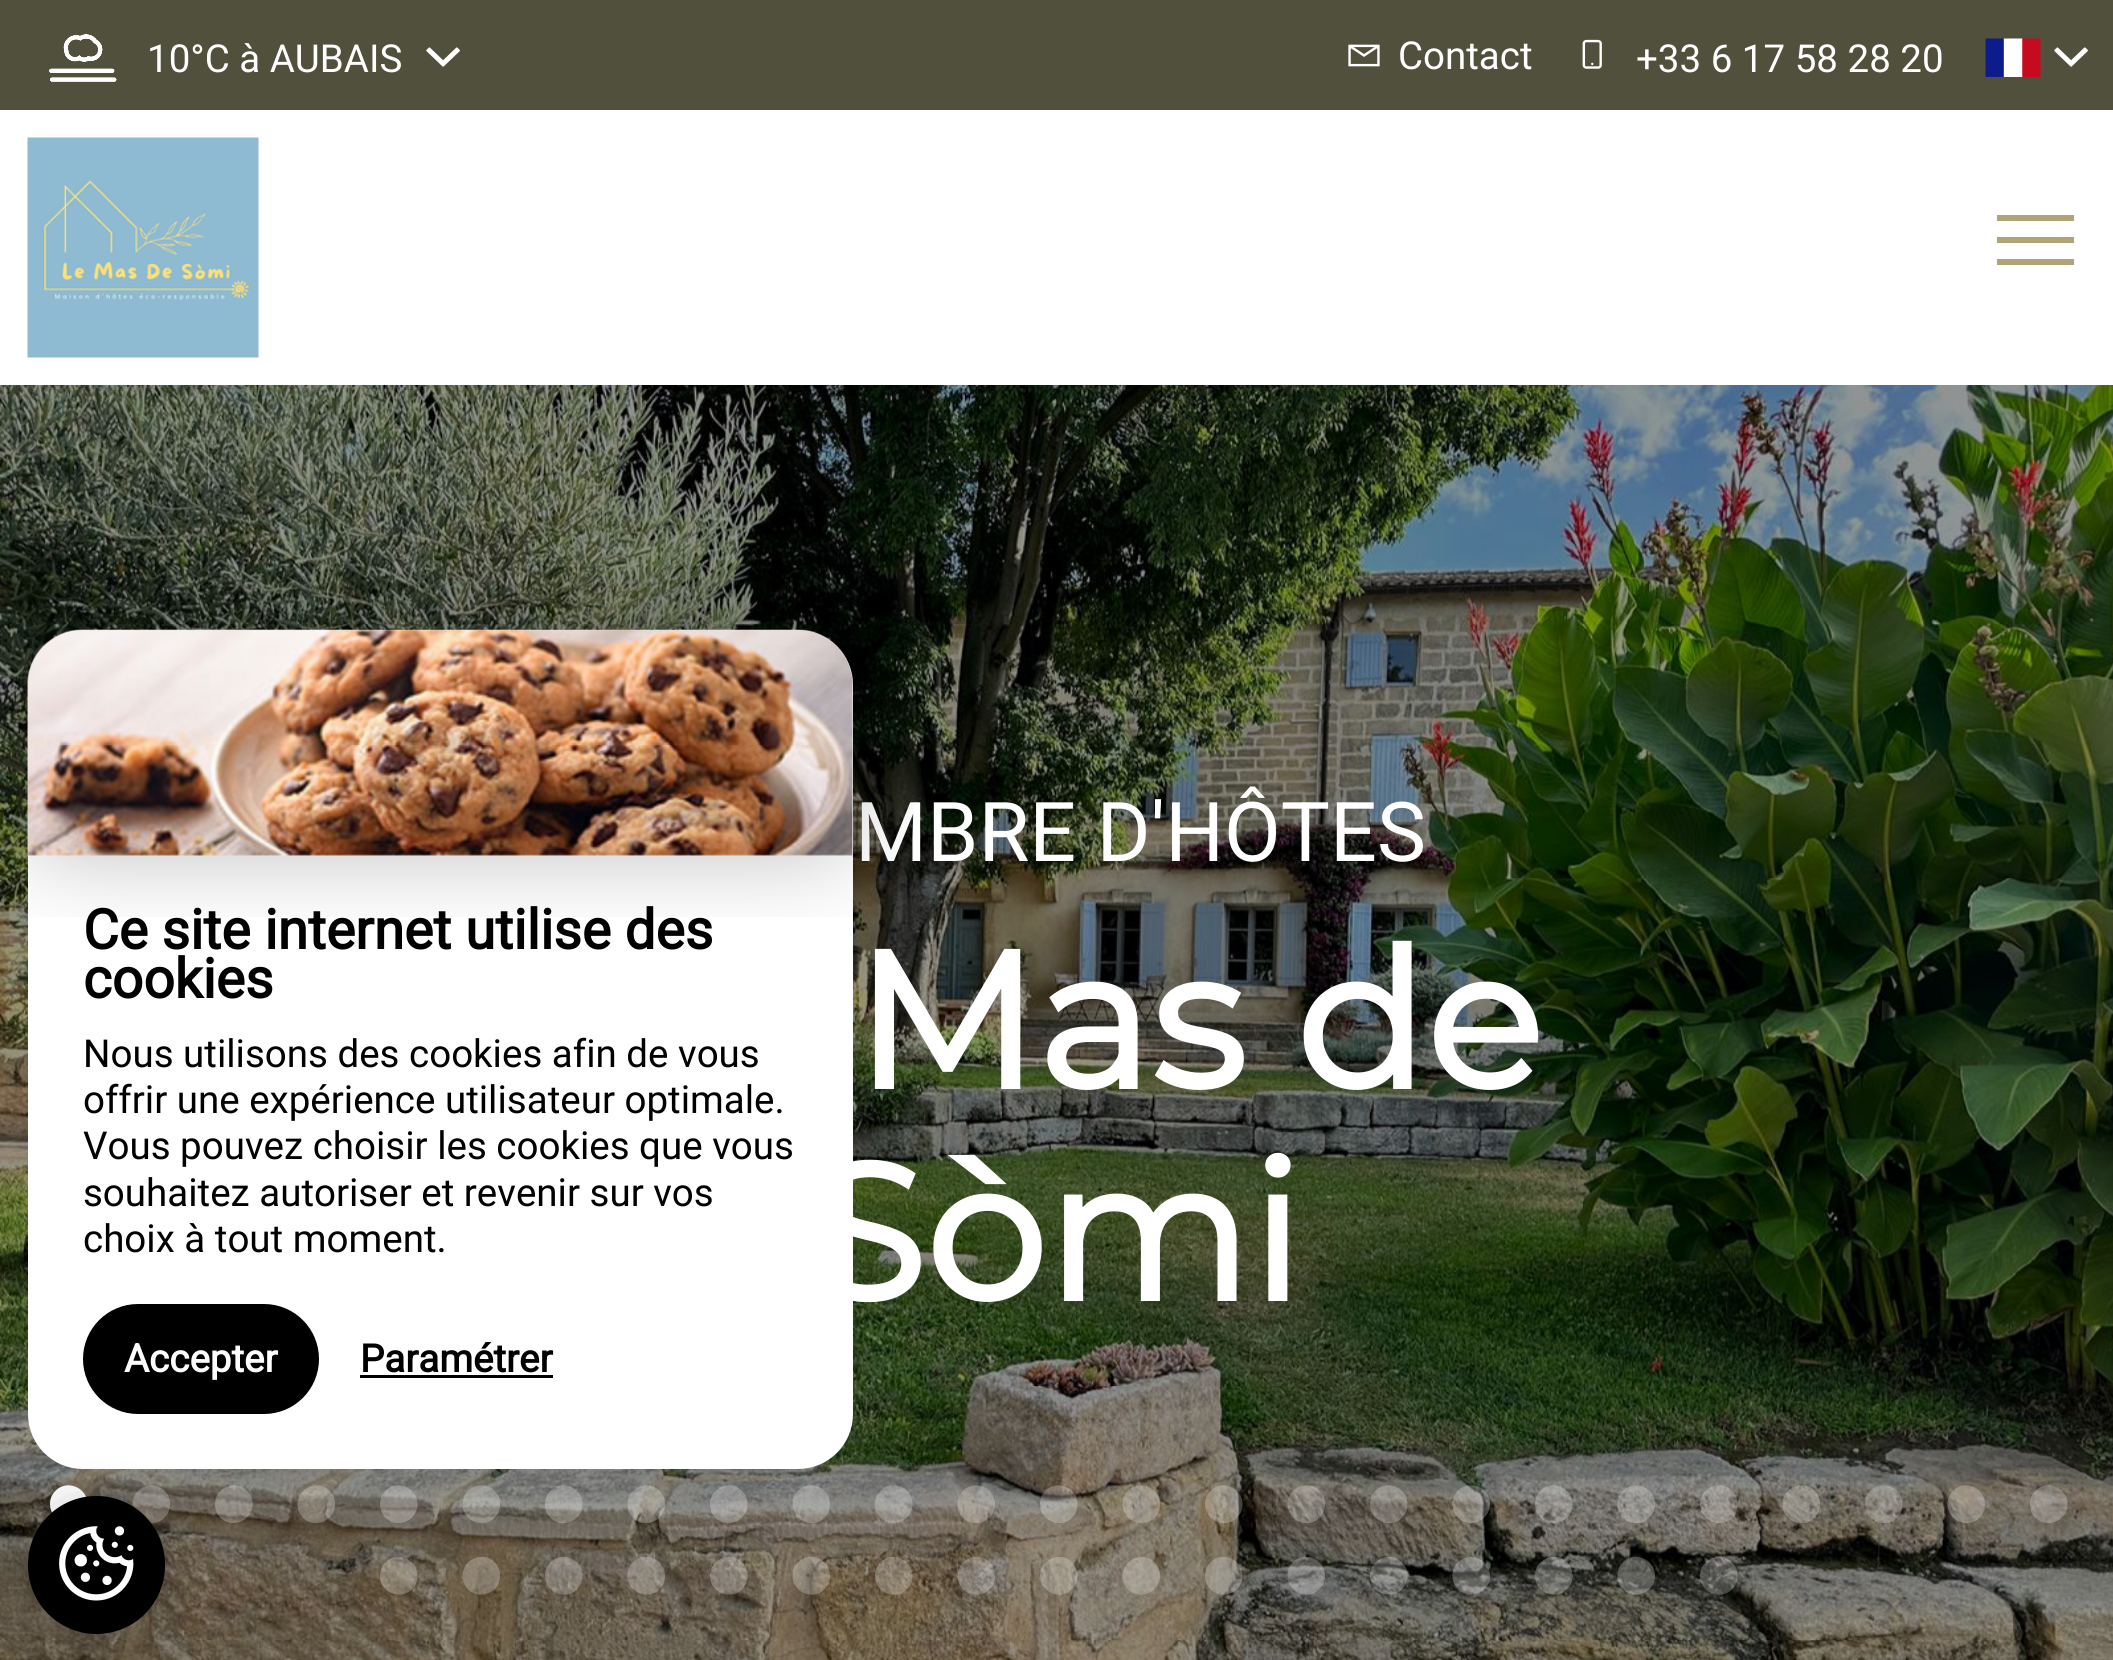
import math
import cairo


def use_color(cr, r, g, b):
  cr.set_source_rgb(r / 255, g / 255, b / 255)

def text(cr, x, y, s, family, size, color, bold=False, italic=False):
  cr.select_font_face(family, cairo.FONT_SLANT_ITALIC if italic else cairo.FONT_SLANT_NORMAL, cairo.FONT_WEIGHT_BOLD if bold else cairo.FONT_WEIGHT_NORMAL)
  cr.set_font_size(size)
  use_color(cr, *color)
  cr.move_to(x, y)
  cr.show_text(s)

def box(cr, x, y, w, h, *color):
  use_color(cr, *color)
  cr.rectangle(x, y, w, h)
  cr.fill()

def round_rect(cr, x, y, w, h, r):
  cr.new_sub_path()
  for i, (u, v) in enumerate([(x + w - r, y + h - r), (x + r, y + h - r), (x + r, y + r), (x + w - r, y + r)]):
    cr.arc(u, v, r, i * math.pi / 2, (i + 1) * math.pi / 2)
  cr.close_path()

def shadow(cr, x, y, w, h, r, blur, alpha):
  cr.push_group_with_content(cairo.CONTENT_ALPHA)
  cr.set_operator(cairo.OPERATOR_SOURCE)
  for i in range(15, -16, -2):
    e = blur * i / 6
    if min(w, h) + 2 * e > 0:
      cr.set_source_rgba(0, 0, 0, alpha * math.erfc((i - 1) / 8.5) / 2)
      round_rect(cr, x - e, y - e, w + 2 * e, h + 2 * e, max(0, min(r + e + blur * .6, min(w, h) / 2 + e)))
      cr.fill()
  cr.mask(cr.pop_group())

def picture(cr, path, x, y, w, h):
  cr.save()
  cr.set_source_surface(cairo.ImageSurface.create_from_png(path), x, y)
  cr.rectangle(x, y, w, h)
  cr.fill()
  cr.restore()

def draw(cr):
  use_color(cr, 255, 255, 255)
  cr.paint()
  box(cr, 0, 0, 2113, 110, 80, 80, 61)
  picture(cr, "img_01.png", 49, 34, 68, 48)
  picture(cr, "img_02.png", 426, 47, 34, 20)
  picture(cr, "img_03.png", 1348, 44, 32, 23)
  picture(cr, "img_04.png", 1582, 39, 20, 30)
  picture(cr, "img_05.png", 1985, 38, 56, 39)
  picture(cr, "img_02.png", 2054, 47, 34, 20)
  picture(cr, "img_06.png", 27, 137, 232, 221)
  box(cr, 1997, 215, 77, 6, 176, 163, 119)
  box(cr, 1997, 237, 77, 6, 176, 163, 119)
  box(cr, 1997, 259, 77, 6, 176, 163, 119)
  box(cr, 0, 385, 2113, 1275, 0, 0, 0)
  picture(cr, "img_07.png", 0, 385, 2113, 1275)
  use_color(cr, 255, 255, 255)
  cr.new_path()
  cr.move_to(87.5, 1504)
  cr.curve_to(87.5, 1486.5, 64.5, 1478.5, 54, 1492.5)
  cr.curve_to(51, 1496, 50, 1500, 50, 1504)
  cr.curve_to(50, 1522, 73, 1530, 83.5, 1516)
  cr.curve_to(86.5, 1512.5, 87.5, 1508.5, 87.5, 1504)
  cr.close_path()
  cr.fill()
  cr.set_source_rgba(1, 1, 1, 0.25)
  cr.new_path()
  cr.move_to(170, 1504)
  cr.curve_to(170, 1500, 169, 1496, 166, 1492.5)
  cr.curve_to(155.5, 1478.5, 132.5, 1486.5, 132.5, 1504)
  cr.curve_to(132.5, 1522, 155.5, 1530, 166, 1516)
  cr.curve_to(169, 1512.5, 170, 1508.5, 170, 1504)
  cr.close_path()
  cr.fill()
  cr.new_path()
  cr.move_to(252.5, 1504)
  cr.curve_to(252.5, 1500, 251.5, 1496, 248.5, 1492.5)
  cr.curve_to(238, 1478.5, 215, 1486.5, 215, 1504)
  cr.curve_to(215, 1508.5, 216, 1512.5, 219, 1516)
  cr.curve_to(229.5, 1530, 252.5, 1522, 252.5, 1504)
  cr.close_path()
  cr.fill()
  cr.new_path()
  cr.move_to(335, 1504)
  cr.curve_to(335, 1500, 334, 1496, 331, 1492.5)
  cr.curve_to(320.5, 1478.5, 297.5, 1486.5, 297.5, 1504)
  cr.curve_to(297.5, 1508.5, 298.5, 1512.5, 301.5, 1516)
  cr.curve_to(312, 1530, 335, 1522, 335, 1504)
  cr.close_path()
  cr.fill()
  cr.new_path()
  cr.move_to(417.5, 1504)
  cr.curve_to(417.5, 1486.5, 394.5, 1478.5, 384, 1492.5)
  cr.curve_to(381, 1496, 380, 1500, 380, 1504)
  cr.curve_to(380, 1508.5, 381, 1512.5, 384, 1516)
  cr.curve_to(394.5, 1530, 417.5, 1522, 417.5, 1504)
  cr.close_path()
  cr.fill()
  cr.new_path()
  cr.move_to(500, 1504)
  cr.curve_to(500, 1500, 499, 1496, 496, 1492.5)
  cr.curve_to(485.5, 1478.5, 462.5, 1486.5, 462.5, 1504)
  cr.curve_to(462.5, 1522, 485.5, 1530, 496, 1516)
  cr.curve_to(499, 1512.5, 500, 1508.5, 500, 1504)
  cr.close_path()
  cr.fill()
  cr.new_path()
  cr.move_to(582.5, 1504)
  cr.curve_to(582.5, 1486.5, 559.5, 1478.5, 549, 1492.5)
  cr.curve_to(546, 1496, 545, 1500, 545, 1504)
  cr.curve_to(545, 1508.5, 546, 1512.5, 549, 1516)
  cr.curve_to(559.5, 1530, 582.5, 1522, 582.5, 1504)
  cr.close_path()
  cr.fill()
  cr.new_path()
  cr.move_to(665, 1504)
  cr.curve_to(665, 1500, 664, 1496, 661, 1492.5)
  cr.curve_to(650.5, 1478.5, 627.5, 1486.5, 627.5, 1504)
  cr.curve_to(627.5, 1508.5, 628.5, 1512.5, 631.5, 1516)
  cr.curve_to(642, 1530, 665, 1522, 665, 1504)
  cr.close_path()
  cr.fill()
  cr.new_path()
  cr.move_to(747.5, 1504)
  cr.curve_to(747.5, 1500, 746.5, 1496, 743.5, 1492.5)
  cr.curve_to(733, 1478.5, 710, 1486.5, 710, 1504)
  cr.curve_to(710, 1508.5, 711, 1512.5, 714, 1516)
  cr.curve_to(724.5, 1530, 747.5, 1522, 747.5, 1504)
  cr.close_path()
  cr.fill()
  cr.new_path()
  cr.move_to(830, 1504)
  cr.curve_to(830, 1486.5, 807, 1478.5, 796.5, 1492.5)
  cr.curve_to(793.5, 1496, 792.5, 1500, 792.5, 1504)
  cr.curve_to(792.5, 1522, 815.5, 1530, 826, 1516)
  cr.curve_to(829, 1512.5, 830, 1508.5, 830, 1504)
  cr.close_path()
  cr.fill()
  cr.new_path()
  cr.move_to(912.5, 1504)
  cr.curve_to(912.5, 1486.5, 889.5, 1478.5, 879, 1492.5)
  cr.curve_to(876, 1496, 875, 1500, 875, 1504)
  cr.curve_to(875, 1508.5, 876, 1512.5, 879, 1516)
  cr.curve_to(889.5, 1530, 912.5, 1522, 912.5, 1504)
  cr.close_path()
  cr.fill()
  cr.new_path()
  cr.move_to(995, 1504)
  cr.curve_to(995, 1486.5, 972, 1478.5, 961.5, 1492.5)
  cr.curve_to(958.5, 1496, 957.5, 1500, 957.5, 1504)
  cr.curve_to(957.5, 1508.5, 958.5, 1512.5, 961.5, 1516)
  cr.curve_to(972, 1530, 995, 1522, 995, 1504)
  cr.close_path()
  cr.fill()
  cr.new_path()
  cr.move_to(1077.5, 1504)
  cr.curve_to(1077.5, 1486.5, 1054.5, 1478.5, 1044, 1492.5)
  cr.curve_to(1041, 1496, 1040, 1500, 1040, 1504)
  cr.curve_to(1040, 1522, 1063, 1530, 1073.5, 1516)
  cr.curve_to(1076.5, 1512.5, 1077.5, 1508.5, 1077.5, 1504)
  cr.close_path()
  cr.fill()
  cr.new_path()
  cr.move_to(1160, 1504)
  cr.curve_to(1160, 1486.5, 1137, 1478.5, 1126.5, 1492.5)
  cr.curve_to(1123.5, 1496, 1122.5, 1500, 1122.5, 1504)
  cr.curve_to(1122.5, 1522, 1145.5, 1530, 1156, 1516)
  cr.curve_to(1159, 1512.5, 1160, 1508.5, 1160, 1504)
  cr.close_path()
  cr.fill()
  cr.new_path()
  cr.move_to(1242.5, 1504)
  cr.curve_to(1242.5, 1486.5, 1219.5, 1478.5, 1209, 1492.5)
  cr.curve_to(1206, 1496, 1205, 1500, 1205, 1504)
  cr.curve_to(1205, 1522, 1228, 1530, 1238.5, 1516)
  cr.curve_to(1241.5, 1512.5, 1242.5, 1508.5, 1242.5, 1504)
  cr.close_path()
  cr.fill()
  cr.new_path()
  cr.move_to(1325, 1504)
  cr.curve_to(1325, 1500, 1324, 1496, 1321, 1492.5)
  cr.curve_to(1310.5, 1478.5, 1287.5, 1486.5, 1287.5, 1504)
  cr.curve_to(1287.5, 1522, 1310.5, 1530, 1321, 1516)
  cr.curve_to(1324, 1512.5, 1325, 1508.5, 1325, 1504)
  cr.close_path()
  cr.fill()
  cr.new_path()
  cr.move_to(1407.5, 1504)
  cr.curve_to(1407.5, 1486.5, 1384.5, 1478.5, 1374, 1492.5)
  cr.curve_to(1371, 1496, 1370, 1500, 1370, 1504)
  cr.curve_to(1370, 1522, 1393, 1530, 1403.5, 1516)
  cr.curve_to(1406.5, 1512.5, 1407.5, 1508.5, 1407.5, 1504)
  cr.close_path()
  cr.fill()
  cr.new_path()
  cr.move_to(1490, 1504)
  cr.curve_to(1490, 1486.5, 1467, 1478.5, 1456.5, 1492.5)
  cr.curve_to(1453.5, 1496, 1452.5, 1500, 1452.5, 1504)
  cr.curve_to(1452.5, 1508.5, 1453.5, 1512.5, 1456.5, 1516)
  cr.curve_to(1467, 1530, 1490, 1522, 1490, 1504)
  cr.close_path()
  cr.fill()
  cr.new_path()
  cr.move_to(1572.5, 1504)
  cr.curve_to(1572.5, 1486.5, 1549.5, 1478.5, 1539, 1492.5)
  cr.curve_to(1536, 1496, 1535, 1500, 1535, 1504)
  cr.curve_to(1535, 1508.5, 1536, 1512.5, 1539, 1516)
  cr.curve_to(1549.5, 1530, 1572.5, 1522, 1572.5, 1504)
  cr.close_path()
  cr.fill()
  cr.new_path()
  cr.move_to(1655, 1504)
  cr.curve_to(1655, 1486.5, 1632, 1478.5, 1621.5, 1492.5)
  cr.curve_to(1618.5, 1496, 1617.5, 1500, 1617.5, 1504)
  cr.curve_to(1617.5, 1508.5, 1618.5, 1512.5, 1621.5, 1516)
  cr.curve_to(1632, 1530, 1655, 1522, 1655, 1504)
  cr.close_path()
  cr.fill()
  cr.new_path()
  cr.move_to(1737.5, 1504)
  cr.curve_to(1737.5, 1500, 1736.5, 1496, 1733.5, 1492.5)
  cr.curve_to(1723, 1478.5, 1700, 1486.5, 1700, 1504)
  cr.curve_to(1700, 1522, 1723, 1530, 1733.5, 1516)
  cr.curve_to(1736.5, 1512.5, 1737.5, 1508.5, 1737.5, 1504)
  cr.close_path()
  cr.fill()
  cr.new_path()
  cr.move_to(1820, 1504)
  cr.curve_to(1820, 1500, 1819, 1496, 1816, 1492.5)
  cr.curve_to(1805.5, 1478.5, 1782.5, 1486.5, 1782.5, 1504)
  cr.curve_to(1782.5, 1522, 1805.5, 1530, 1816, 1516)
  cr.curve_to(1819, 1512.5, 1820, 1508.5, 1820, 1504)
  cr.close_path()
  cr.fill()
  cr.new_path()
  cr.move_to(1902.5, 1504)
  cr.curve_to(1902.5, 1486.5, 1879.5, 1478.5, 1869, 1492.5)
  cr.curve_to(1866, 1496, 1865, 1500, 1865, 1504)
  cr.curve_to(1865, 1522, 1888, 1530, 1898.5, 1516)
  cr.curve_to(1901.5, 1512.5, 1902.5, 1508.5, 1902.5, 1504)
  cr.close_path()
  cr.fill()
  cr.new_path()
  cr.move_to(1985, 1504)
  cr.curve_to(1985, 1486.5, 1962, 1478.5, 1951.5, 1492.5)
  cr.curve_to(1948.5, 1496, 1947.5, 1500, 1947.5, 1504)
  cr.curve_to(1947.5, 1522, 1970.5, 1530, 1981, 1516)
  cr.curve_to(1984, 1512.5, 1985, 1508.5, 1985, 1504)
  cr.close_path()
  cr.fill()
  cr.new_path()
  cr.move_to(2067.5, 1504)
  cr.curve_to(2067.5, 1486.5, 2044.5, 1478.5, 2034, 1492.5)
  cr.curve_to(2031, 1496, 2030, 1500, 2030, 1504)
  cr.curve_to(2030, 1508.5, 2031, 1512.5, 2034, 1516)
  cr.curve_to(2044.5, 1530, 2067.5, 1522, 2067.5, 1504)
  cr.close_path()
  cr.fill()
  cr.new_path()
  cr.move_to(417.5, 1576)
  cr.curve_to(417.5, 1558, 394.5, 1550, 384, 1564)
  cr.curve_to(381, 1567.5, 380, 1571.5, 380, 1576)
  cr.curve_to(380, 1593.5, 403, 1601.5, 413.5, 1587.5)
  cr.curve_to(416.5, 1584, 417.5, 1580, 417.5, 1576)
  cr.close_path()
  cr.fill()
  cr.new_path()
  cr.move_to(500, 1576)
  cr.curve_to(500, 1571.5, 499, 1567.5, 496, 1564)
  cr.curve_to(485.5, 1550, 462.5, 1558, 462.5, 1576)
  cr.curve_to(462.5, 1580, 463.5, 1584, 466.5, 1587.5)
  cr.curve_to(477, 1601.5, 500, 1593.5, 500, 1576)
  cr.close_path()
  cr.fill()
  cr.new_path()
  cr.move_to(582.5, 1576)
  cr.curve_to(582.5, 1558, 559.5, 1550, 549, 1564)
  cr.curve_to(546, 1567.5, 545, 1571.5, 545, 1576)
  cr.curve_to(545, 1593.5, 568, 1601.5, 578.5, 1587.5)
  cr.curve_to(581.5, 1584, 582.5, 1580, 582.5, 1576)
  cr.close_path()
  cr.fill()
  cr.new_path()
  cr.move_to(665, 1576)
  cr.curve_to(665, 1558, 642, 1550, 631.5, 1564)
  cr.curve_to(628.5, 1567.5, 627.5, 1571.5, 627.5, 1576)
  cr.curve_to(627.5, 1593.5, 650.5, 1601.5, 661, 1587.5)
  cr.curve_to(664, 1584, 665, 1580, 665, 1576)
  cr.close_path()
  cr.fill()
  cr.new_path()
  cr.move_to(747.5, 1576)
  cr.curve_to(747.5, 1571.5, 746.5, 1567.5, 743.5, 1564)
  cr.curve_to(733, 1550, 710, 1558, 710, 1576)
  cr.curve_to(710, 1593.5, 733, 1601.5, 743.5, 1587.5)
  cr.curve_to(746.5, 1584, 747.5, 1580, 747.5, 1576)
  cr.close_path()
  cr.fill()
  cr.new_path()
  cr.move_to(830, 1576)
  cr.curve_to(830, 1558, 807, 1550, 796.5, 1564)
  cr.curve_to(793.5, 1567.5, 792.5, 1571.5, 792.5, 1576)
  cr.curve_to(792.5, 1593.5, 815.5, 1601.5, 826, 1587.5)
  cr.curve_to(829, 1584, 830, 1580, 830, 1576)
  cr.close_path()
  cr.fill()
  cr.new_path()
  cr.move_to(912.5, 1576)
  cr.curve_to(912.5, 1558, 889.5, 1550, 879, 1564)
  cr.curve_to(876, 1567.5, 875, 1571.5, 875, 1576)
  cr.curve_to(875, 1593.5, 898, 1601.5, 908.5, 1587.5)
  cr.curve_to(911.5, 1584, 912.5, 1580, 912.5, 1576)
  cr.close_path()
  cr.fill()
  cr.new_path()
  cr.move_to(995, 1576)
  cr.curve_to(995, 1571.5, 994, 1567.5, 991, 1564)
  cr.curve_to(980.5, 1550, 957.5, 1558, 957.5, 1576)
  cr.curve_to(957.5, 1593.5, 980.5, 1601.5, 991, 1587.5)
  cr.curve_to(994, 1584, 995, 1580, 995, 1576)
  cr.close_path()
  cr.fill()
  cr.new_path()
  cr.move_to(1077.5, 1576)
  cr.curve_to(1077.5, 1571.5, 1076.5, 1567.5, 1073.5, 1564)
  cr.curve_to(1063, 1550, 1040, 1558, 1040, 1576)
  cr.curve_to(1040, 1593.5, 1063, 1601.5, 1073.5, 1587.5)
  cr.curve_to(1076.5, 1584, 1077.5, 1580, 1077.5, 1576)
  cr.close_path()
  cr.fill()
  cr.new_path()
  cr.move_to(1160, 1576)
  cr.curve_to(1160, 1571.5, 1159, 1567.5, 1156, 1564)
  cr.curve_to(1145.5, 1550, 1122.5, 1558, 1122.5, 1576)
  cr.curve_to(1122.5, 1580, 1123.5, 1584, 1126.5, 1587.5)
  cr.curve_to(1137, 1601.5, 1160, 1593.5, 1160, 1576)
  cr.close_path()
  cr.fill()
  cr.new_path()
  cr.move_to(1242.5, 1576)
  cr.curve_to(1242.5, 1558, 1219.5, 1550, 1209, 1564)
  cr.curve_to(1206, 1567.5, 1205, 1571.5, 1205, 1576)
  cr.curve_to(1205, 1580, 1206, 1584, 1209, 1587.5)
  cr.curve_to(1219.5, 1601.5, 1242.5, 1593.5, 1242.5, 1576)
  cr.close_path()
  cr.fill()
  cr.new_path()
  cr.move_to(1325, 1576)
  cr.curve_to(1325, 1558, 1302, 1550, 1291.5, 1564)
  cr.curve_to(1288.5, 1567.5, 1287.5, 1571.5, 1287.5, 1576)
  cr.curve_to(1287.5, 1593.5, 1310.5, 1601.5, 1321, 1587.5)
  cr.curve_to(1324, 1584, 1325, 1580, 1325, 1576)
  cr.close_path()
  cr.fill()
  cr.new_path()
  cr.move_to(1407.5, 1576)
  cr.curve_to(1407.5, 1571.5, 1406.5, 1567.5, 1403.5, 1564)
  cr.curve_to(1393, 1550, 1370, 1558, 1370, 1576)
  cr.curve_to(1370, 1593.5, 1393, 1601.5, 1403.5, 1587.5)
  cr.curve_to(1406.5, 1584, 1407.5, 1580, 1407.5, 1576)
  cr.close_path()
  cr.fill()
  cr.new_path()
  cr.move_to(1490, 1576)
  cr.curve_to(1490, 1558, 1467, 1550, 1456.5, 1564)
  cr.curve_to(1453.5, 1567.5, 1452.5, 1571.5, 1452.5, 1576)
  cr.curve_to(1452.5, 1580, 1453.5, 1584, 1456.5, 1587.5)
  cr.curve_to(1467, 1601.5, 1490, 1593.5, 1490, 1576)
  cr.close_path()
  cr.fill()
  cr.new_path()
  cr.move_to(1572.5, 1576)
  cr.curve_to(1572.5, 1571.5, 1571.5, 1567.5, 1568.5, 1564)
  cr.curve_to(1558, 1550, 1535, 1558, 1535, 1576)
  cr.curve_to(1535, 1593.5, 1558, 1601.5, 1568.5, 1587.5)
  cr.curve_to(1571.5, 1584, 1572.5, 1580, 1572.5, 1576)
  cr.close_path()
  cr.fill()
  cr.new_path()
  cr.move_to(1655, 1576)
  cr.curve_to(1655, 1558, 1632, 1550, 1621.5, 1564)
  cr.curve_to(1618.5, 1567.5, 1617.5, 1571.5, 1617.5, 1576)
  cr.curve_to(1617.5, 1580, 1618.5, 1584, 1621.5, 1587.5)
  cr.curve_to(1632, 1601.5, 1655, 1593.5, 1655, 1576)
  cr.close_path()
  cr.fill()
  cr.new_path()
  cr.move_to(1737.5, 1576)
  cr.curve_to(1737.5, 1571.5, 1736.5, 1567.5, 1733.5, 1564)
  cr.curve_to(1723, 1550, 1700, 1558, 1700, 1576)
  cr.curve_to(1700, 1593.5, 1723, 1601.5, 1733.5, 1587.5)
  cr.curve_to(1736.5, 1584, 1737.5, 1580, 1737.5, 1576)
  cr.close_path()
  cr.fill()
  use_color(cr, 255, 255, 255)
  round_rect(cr, 28, 630, 825, 839, 55)
  cr.fill()
  use_color(cr, 0, 0, 0)
  round_rect(cr, 83, 1304, 236, 110, 55)
  cr.fill()
  box(cr, 360, 1375, 193, 3, 0, 0, 0)
  use_color(cr, 0, 0, 0)
  shadow(cr, 28, 1499, 137, 137, 68.5, 20.5, 0.2)
  use_color(cr, 0, 0, 0)
  round_rect(cr, 28, 1496, 137, 138, 68.5)
  cr.fill()
  picture(cr, "img_09.png", 59, 1526, 75, 75)
  text(cr, 147, 72, "10°C à AUBAIS", "Roboto", 38.5, (255, 255, 255))
  text(cr, 1398, 69, "Contact", "Roboto", 38.5, (255, 255, 255))
  text(cr, 1636, 72, "+33 6 17 58 28 20", "Roboto", 38.5, (255, 255, 255))
  text(cr, 855, 861, "MBRE D'HÔTES", "Roboto", 82.5, (255, 255, 255))
  text(cr, 853, 1089, "Mas de", "Montserrat", 192.5, (255, 255, 255), bold=True)
  text(cr, 806, 1301, "Sòmi", "Montserrat", 192.5, (255, 255, 255), bold=True)
  picture(cr, "img_08.png", 0, 572, 914, 345)
  text(cr, 83, 949, "Ce site internet utilise des", "Roboto", 55, (0, 0, 0), bold=True)
  text(cr, 83, 998, "cookies", "Roboto", 55, (0, 0, 0), bold=True)
  text(cr, 83, 1067, "Nous utilisons des cookies afin de vous", "Roboto", 38.5, (0, 0, 0))
  text(cr, 83, 1113, "offrir une expérience utilisateur optimale.", "Roboto", 38.5, (0, 0, 0))
  text(cr, 83, 1159, "Vous pouvez choisir les cookies que vous", "Roboto", 38.5, (0, 0, 0))
  text(cr, 83, 1206, "souhaitez autoriser et revenir sur vos", "Roboto", 38.5, (0, 0, 0))
  text(cr, 83, 1252, "choix à tout moment.", "Roboto", 38.5, (0, 0, 0))
  text(cr, 124, 1372, "Accepter", "Roboto", 38.5, (255, 255, 255), bold=True)
  text(cr, 360, 1372, "Paramétrer", "Roboto", 38.5, (0, 0, 0), bold=True)


surface = cairo.ImageSurface(cairo.FORMAT_RGB24, 2113, 1660)
cr = cairo.Context(surface)
options = cairo.FontOptions()
options.set_hint_metrics(cairo.HINT_METRICS_OFF)
options.set_hint_style(cairo.HINT_STYLE_NONE)
cr.set_font_options(options)
cr.set_miter_limit(4)
draw(cr)
surface.write_to_png("out.png")
